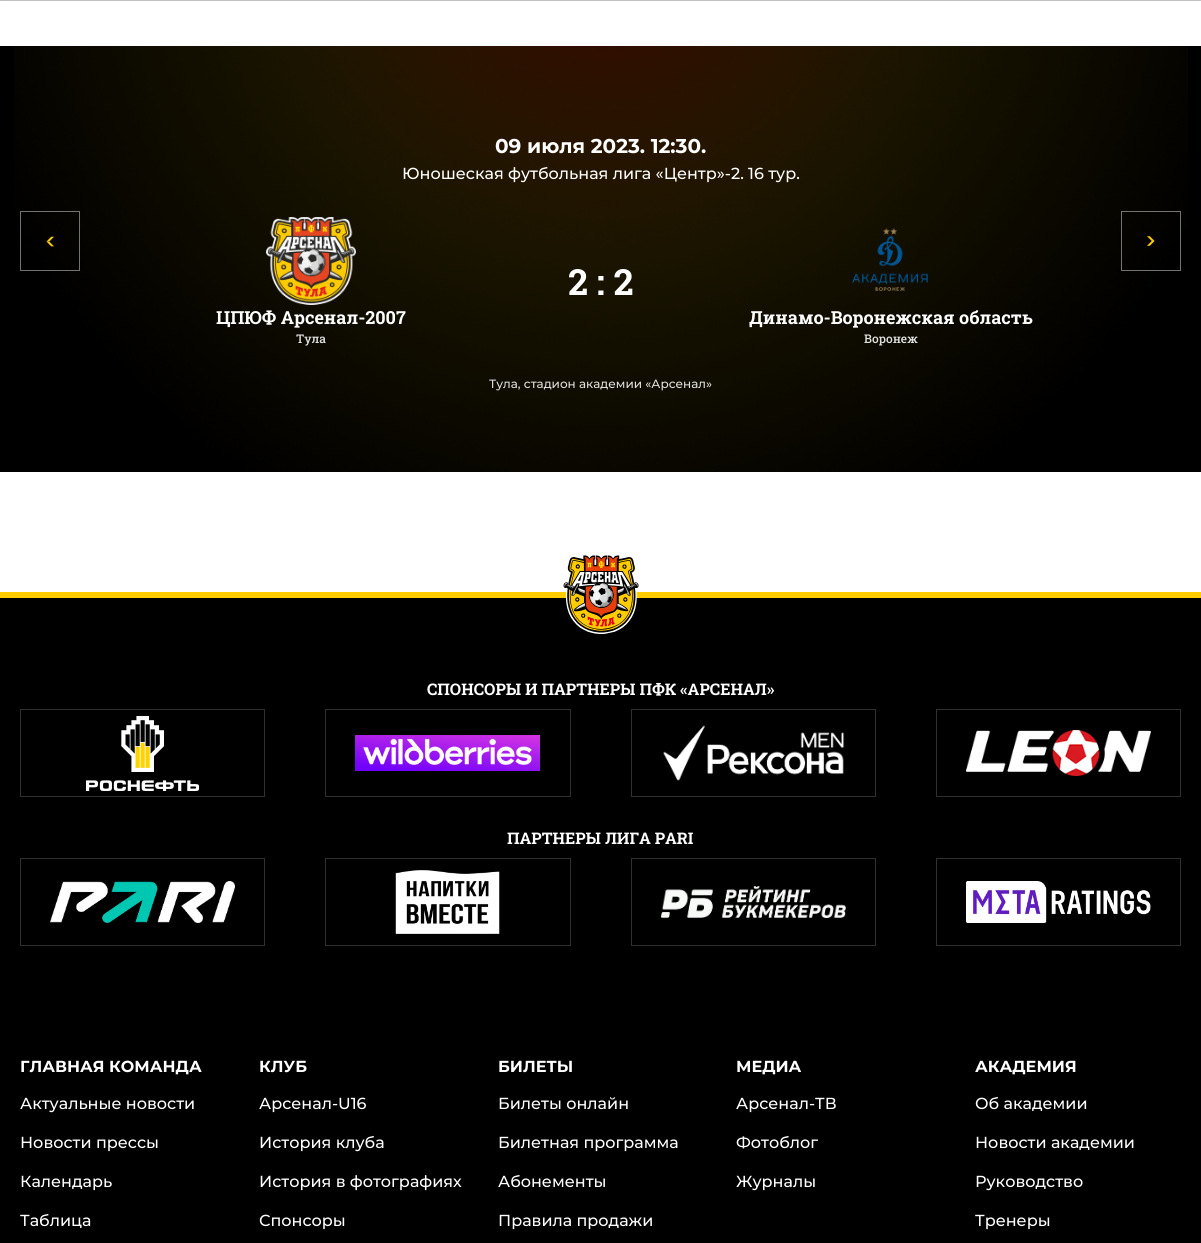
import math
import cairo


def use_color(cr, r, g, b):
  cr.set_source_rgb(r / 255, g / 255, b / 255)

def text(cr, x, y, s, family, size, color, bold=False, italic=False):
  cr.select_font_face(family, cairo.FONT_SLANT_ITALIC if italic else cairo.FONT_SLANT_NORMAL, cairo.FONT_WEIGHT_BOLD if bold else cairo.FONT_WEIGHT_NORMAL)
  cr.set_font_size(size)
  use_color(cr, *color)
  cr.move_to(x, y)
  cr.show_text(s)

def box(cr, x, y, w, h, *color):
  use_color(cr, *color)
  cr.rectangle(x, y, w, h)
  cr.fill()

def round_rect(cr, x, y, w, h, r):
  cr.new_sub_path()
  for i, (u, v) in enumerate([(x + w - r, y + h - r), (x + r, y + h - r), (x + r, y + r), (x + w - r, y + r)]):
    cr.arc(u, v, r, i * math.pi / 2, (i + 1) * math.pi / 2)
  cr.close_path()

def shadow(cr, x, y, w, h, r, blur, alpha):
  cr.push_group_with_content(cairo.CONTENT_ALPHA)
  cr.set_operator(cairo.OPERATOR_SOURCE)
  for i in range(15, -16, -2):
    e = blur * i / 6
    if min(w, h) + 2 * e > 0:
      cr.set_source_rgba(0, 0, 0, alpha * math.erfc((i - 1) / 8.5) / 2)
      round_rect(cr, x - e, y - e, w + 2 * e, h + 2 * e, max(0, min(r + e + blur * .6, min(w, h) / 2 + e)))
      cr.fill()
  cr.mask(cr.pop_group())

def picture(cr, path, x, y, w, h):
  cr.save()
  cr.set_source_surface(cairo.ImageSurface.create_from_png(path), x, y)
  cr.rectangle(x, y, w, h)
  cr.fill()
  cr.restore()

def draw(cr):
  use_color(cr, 255, 255, 255)
  cr.paint()
  use_color(cr, 0, 0, 0)
  shadow(cr, 0, -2, 1201, 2, 0, 0.5, 1)
  box(cr, 0, 46, 1201, 426, 0, 0, 0)
  picture(cr, "img_01.png", 14, 46, 1174, 426)
  cr.rectangle(20.5, 211.5, 59, 59)
  use_color(cr, 115, 115, 115)
  cr.set_line_width(1)
  cr.stroke()
  picture(cr, "img_02.png", 46, 236, 8, 11)
  picture(cr, "img_03.png", 266, 217, 90, 88)
  picture(cr, "img_04.png", 852, 228, 76, 63)
  cr.rectangle(1121.5, 211.5, 59, 59)
  cr.stroke()
  picture(cr, "img_05.png", 1147, 236, 8, 10)
  box(cr, 0, 598, 1201, 645, 0, 0, 0)
  box(cr, 0, 592, 1201, 6, 255, 204, 0)
  picture(cr, "img_06.png", 563, 555, 76, 79)
  cr.rectangle(20.5, 709.5, 244, 87)
  use_color(cr, 48, 48, 48)
  cr.stroke()
  picture(cr, "img_07.png", 86, 716, 113, 75)
  cr.rectangle(325.5, 709.5, 245, 87)
  cr.stroke()
  picture(cr, "img_08.png", 355, 735, 185, 36)
  cr.rectangle(631.5, 709.5, 244, 87)
  cr.stroke()
  picture(cr, "img_09.png", 663, 725, 182, 56)
  cr.rectangle(936.5, 709.5, 244, 87)
  cr.stroke()
  picture(cr, "img_10.png", 966, 730, 185, 46)
  cr.rectangle(20.5, 858.5, 244, 87)
  cr.stroke()
  picture(cr, "img_11.png", 50, 881, 185, 42)
  cr.rectangle(325.5, 858.5, 245, 87)
  cr.stroke()
  picture(cr, "img_12.png", 395, 870, 105, 64)
  cr.rectangle(631.5, 858.5, 244, 87)
  cr.stroke()
  picture(cr, "img_13.png", 661, 886, 185, 32)
  cr.rectangle(936.5, 858.5, 244, 87)
  cr.stroke()
  picture(cr, "img_14.png", 966, 881, 185, 42)
  text(cr, 495, 153, "09 июля 2023. 12:30.", "Montserrat", 20, (255, 255, 255), bold=True)
  text(cr, 402, 179, "Юношеская футбольная лига «Центр»-2. 16 тур.", "Montserrat Medium", 16, (255, 255, 255))
  text(cr, 568, 295, "2 : 2", "Roboto Slab", 36, (255, 255, 255), bold=True)
  text(cr, 216, 324, "ЦПЮФ Арсенал-2007", "Roboto Slab", 18, (255, 255, 255), bold=True)
  text(cr, 296, 343, "Тула", "Roboto Slab Medium", 12, (224, 224, 224))
  text(cr, 749, 324, "Динамо-Воронежская область", "Roboto Slab", 18, (255, 255, 255), bold=True)
  text(cr, 864, 343, "Воронеж", "Roboto Slab Medium", 12, (224, 224, 224))
  text(cr, 489, 388, "Тула, стадион академии «Арсенал»", "Montserrat Medium", 12, (224, 224, 224))
  text(cr, 427, 695, "CПОНСОРЫ И ПАРТНЕРЫ ПФК «АРСЕНАЛ»", "Roboto Slab", 16, (255, 255, 255), bold=True)
  text(cr, 507, 844, "ПАРТНЕРЫ ЛИГА PARI", "Roboto Slab", 16, (255, 255, 255), bold=True)
  text(cr, 20, 1072, "ГЛАВНАЯ КОМАНДА", "Montserrat", 16, (255, 255, 255), bold=True)
  text(cr, 20, 1109, "Актуальные новости", "Montserrat Medium", 16, (255, 255, 255))
  text(cr, 20, 1148, "Новости прессы", "Montserrat Medium", 16, (255, 255, 255))
  text(cr, 20, 1187, "Календарь", "Montserrat Medium", 16, (255, 255, 255))
  text(cr, 20, 1226, "Таблица", "Montserrat Medium", 16, (255, 255, 255))
  text(cr, 259, 1072, "КЛУБ", "Montserrat", 16, (255, 255, 255), bold=True)
  text(cr, 259, 1109, "Арсенал-U16", "Montserrat Medium", 16, (255, 255, 255))
  text(cr, 259, 1148, "История клуба", "Montserrat Medium", 16, (255, 255, 255))
  text(cr, 259, 1187, "История в фотографиях", "Montserrat Medium", 16, (255, 255, 255))
  text(cr, 259, 1226, "Спонсоры", "Montserrat Medium", 16, (255, 255, 255))
  text(cr, 498, 1072, "БИЛЕТЫ", "Montserrat", 16, (255, 255, 255), bold=True)
  text(cr, 498, 1109, "Билеты онлайн", "Montserrat Medium", 16, (255, 255, 255))
  text(cr, 498, 1148, "Билетная программа", "Montserrat Medium", 16, (255, 255, 255))
  text(cr, 498, 1187, "Абонементы", "Montserrat Medium", 16, (255, 255, 255))
  text(cr, 498, 1226, "Правила продажи", "Montserrat Medium", 16, (255, 255, 255))
  text(cr, 736, 1072, "МЕДИА", "Montserrat", 16, (255, 255, 255), bold=True)
  text(cr, 736, 1109, "Арсенал-ТВ", "Montserrat Medium", 16, (255, 255, 255))
  text(cr, 736, 1148, "Фотоблог", "Montserrat Medium", 16, (255, 255, 255))
  text(cr, 736, 1187, "Журналы", "Montserrat Medium", 16, (255, 255, 255))
  text(cr, 975, 1072, "АКАДЕМИЯ", "Montserrat", 16, (255, 255, 255), bold=True)
  text(cr, 975, 1109, "Об академии", "Montserrat Medium", 16, (255, 255, 255))
  text(cr, 975, 1148, "Новости академии", "Montserrat Medium", 16, (255, 255, 255))
  text(cr, 975, 1187, "Руководство", "Montserrat Medium", 16, (255, 255, 255))
  text(cr, 975, 1226, "Тренеры", "Montserrat Medium", 16, (255, 255, 255))


surface = cairo.ImageSurface(cairo.FORMAT_RGB24, 1201, 1243)
cr = cairo.Context(surface)
options = cairo.FontOptions()
options.set_hint_metrics(cairo.HINT_METRICS_OFF)
options.set_hint_style(cairo.HINT_STYLE_NONE)
cr.set_font_options(options)
cr.set_miter_limit(4)
draw(cr)
surface.write_to_png("out.png")
